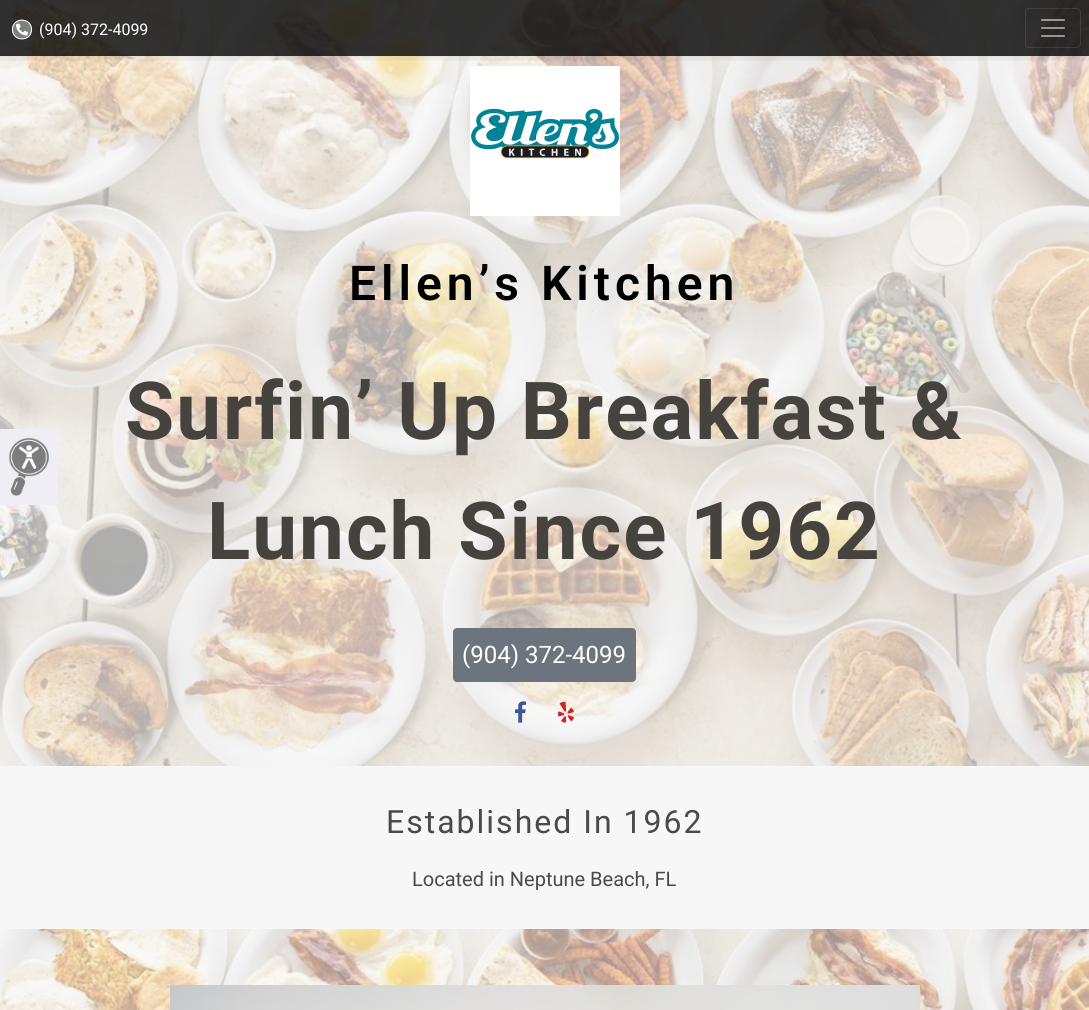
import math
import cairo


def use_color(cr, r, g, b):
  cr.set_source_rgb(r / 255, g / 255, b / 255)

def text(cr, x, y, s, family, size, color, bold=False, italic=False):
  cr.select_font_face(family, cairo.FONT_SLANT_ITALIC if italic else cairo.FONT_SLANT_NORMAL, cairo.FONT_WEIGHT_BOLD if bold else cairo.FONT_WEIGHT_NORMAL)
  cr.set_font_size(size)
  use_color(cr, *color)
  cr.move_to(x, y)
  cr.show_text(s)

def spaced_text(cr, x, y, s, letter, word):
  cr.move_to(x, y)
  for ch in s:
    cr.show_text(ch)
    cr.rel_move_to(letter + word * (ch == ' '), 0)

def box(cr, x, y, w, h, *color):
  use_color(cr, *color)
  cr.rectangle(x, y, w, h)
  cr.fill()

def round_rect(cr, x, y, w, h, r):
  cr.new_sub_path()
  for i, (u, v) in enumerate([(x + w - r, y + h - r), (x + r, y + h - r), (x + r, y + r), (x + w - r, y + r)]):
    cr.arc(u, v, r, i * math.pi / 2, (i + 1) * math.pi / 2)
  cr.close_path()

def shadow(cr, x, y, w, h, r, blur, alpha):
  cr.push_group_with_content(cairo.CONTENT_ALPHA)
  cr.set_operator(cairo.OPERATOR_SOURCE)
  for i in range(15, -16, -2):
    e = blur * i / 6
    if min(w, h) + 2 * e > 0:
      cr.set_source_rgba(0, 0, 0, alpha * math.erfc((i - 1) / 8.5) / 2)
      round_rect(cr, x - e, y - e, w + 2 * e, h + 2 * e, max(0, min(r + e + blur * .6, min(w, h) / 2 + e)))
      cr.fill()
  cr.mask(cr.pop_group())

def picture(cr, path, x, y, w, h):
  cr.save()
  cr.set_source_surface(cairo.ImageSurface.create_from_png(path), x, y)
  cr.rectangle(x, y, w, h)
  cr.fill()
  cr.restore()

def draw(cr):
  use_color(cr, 247, 247, 247)
  cr.paint()
  picture(cr, "img_04.png", 0, 0, 1089, 766)
  picture(cr, "img_05.png", 470, 66, 150, 150)
  cr.save()
  cr.rectangle(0, 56, 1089, 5)
  cr.clip()
  use_color(cr, 0, 0, 0)
  shadow(cr, 0, 2, 1089, 56, 0, 4, 0.1)
  cr.restore()
  cr.set_source_rgba(0, 0, 0, 0.8)
  cr.rectangle(0, 0, 1089, 56)
  cr.fill()
  use_color(cr, 128, 128, 128)
  cr.new_path()
  cr.move_to(32, 29.5)
  cr.curve_to(32, 42.5, 12, 42.5, 12, 29.5)
  cr.curve_to(12, 16.5, 32, 16.5, 32, 29.5)
  cr.close_path()
  cr.fill()
  cr.new_path()
  cr.move_to(31.5, 29.5)
  cr.curve_to(31.5, 42, 12.5, 42, 12.5, 29.5)
  cr.curve_to(12.5, 17, 31.5, 17, 31.5, 29.5)
  cr.close_path()
  use_color(cr, 255, 255, 255)
  cr.set_line_width(1)
  cr.stroke()
  picture(cr, "img_01.png", 16, 23, 12, 13)
  round_rect(cr, 1025.5, 8.5, 55, 39, 3.5)
  cr.set_source_rgba(1, 1, 1, 0.1)
  cr.stroke()
  picture(cr, "img_02.png", 1041, 19, 24, 18)
  box(cr, 0, 429, 58, 76, 238, 238, 244)
  picture(cr, "img_03.png", 8, 437, 41, 59)
  use_color(cr, 108, 117, 125)
  round_rect(cr, 453.5, 628.5, 182, 53, 3.5)
  cr.fill_preserve()
  cr.stroke()
  picture(cr, "img_06.png", 515, 701, 11, 22)
  picture(cr, "img_07.png", 558, 701, 16, 22)
  picture(cr, "img_08.png", 0, 929, 1089, 81)
  picture(cr, "img_09.png", 170, 985, 750, 25)
  text(cr, 39, 35, "(904) 372-4099", "Roboto", 16, (255, 255, 255))
  cr.select_font_face("Roboto SemiBold")
  cr.set_font_size(48)
  use_color(cr, 0, 0, 0)
  spaced_text(cr, 349, 300, "Ellen’s Kitchen", 5, 0)
  cr.select_font_face("Roboto", cairo.FONT_SLANT_NORMAL, cairo.FONT_WEIGHT_BOLD)
  cr.set_font_size(80)
  use_color(cr, 70, 67, 63)
  spaced_text(cr, 125, 439, "Surfin’ Up Breakfast &", 2, 0)
  spaced_text(cr, 207, 559, "Lunch Since 1962", 2, 0)
  text(cr, 462, 663, "(904) 372-4099", "Roboto", 24, (255, 255, 255))
  cr.set_font_size(32)
  use_color(cr, 74, 74, 74)
  spaced_text(cr, 386, 833, "Established In 1962", 2, 0)
  text(cr, 412, 886, "Located in Neptune Beach, FL", "Roboto", 20, (74, 74, 74))


surface = cairo.ImageSurface(cairo.FORMAT_RGB24, 1089, 1010)
cr = cairo.Context(surface)
options = cairo.FontOptions()
options.set_hint_metrics(cairo.HINT_METRICS_OFF)
options.set_hint_style(cairo.HINT_STYLE_NONE)
cr.set_font_options(options)
cr.set_miter_limit(4)
draw(cr)
surface.write_to_png("out.png")
